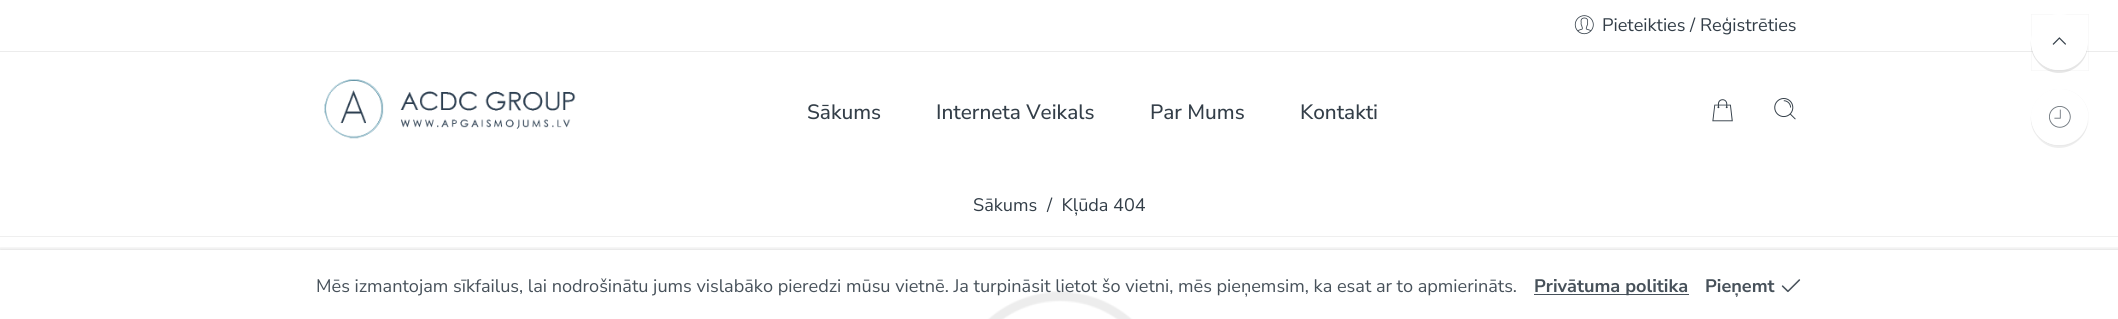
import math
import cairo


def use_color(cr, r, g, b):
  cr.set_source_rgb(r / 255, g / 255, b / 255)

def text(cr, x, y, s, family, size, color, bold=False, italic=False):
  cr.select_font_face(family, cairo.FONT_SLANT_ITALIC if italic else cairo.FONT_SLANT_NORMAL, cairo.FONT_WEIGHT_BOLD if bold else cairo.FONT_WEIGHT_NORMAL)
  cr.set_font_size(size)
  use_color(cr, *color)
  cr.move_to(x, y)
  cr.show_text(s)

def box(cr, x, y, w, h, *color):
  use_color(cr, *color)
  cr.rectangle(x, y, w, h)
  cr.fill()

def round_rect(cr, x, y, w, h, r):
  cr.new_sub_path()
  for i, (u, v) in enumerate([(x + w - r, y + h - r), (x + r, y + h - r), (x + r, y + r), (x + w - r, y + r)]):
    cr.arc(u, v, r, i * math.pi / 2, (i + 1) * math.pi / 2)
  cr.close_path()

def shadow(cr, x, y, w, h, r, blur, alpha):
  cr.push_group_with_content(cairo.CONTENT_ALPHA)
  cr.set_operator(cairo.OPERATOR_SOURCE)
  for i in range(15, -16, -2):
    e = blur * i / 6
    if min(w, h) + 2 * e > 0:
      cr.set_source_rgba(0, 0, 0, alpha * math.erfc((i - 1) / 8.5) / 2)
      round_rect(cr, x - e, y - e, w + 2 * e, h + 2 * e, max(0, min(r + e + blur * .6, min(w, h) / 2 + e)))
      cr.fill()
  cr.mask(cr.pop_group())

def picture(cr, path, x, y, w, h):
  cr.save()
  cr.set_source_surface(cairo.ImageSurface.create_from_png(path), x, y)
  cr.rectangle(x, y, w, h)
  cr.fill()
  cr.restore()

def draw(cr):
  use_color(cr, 255, 255, 255)
  cr.paint()
  box(cr, 0, 51, 2118, 1, 236, 236, 236)
  picture(cr, "img_01.png", 1574, 15, 20, 20)
  picture(cr, "img_02.png", 324, 79, 252, 60)
  picture(cr, "img_03.png", 1712, 99, 21, 23)
  picture(cr, "img_04.png", 1774, 98, 22, 22)
  box(cr, 0, 236, 2118, 1, 239, 239, 239)
  picture(cr, "img_05.png", 987, 291, 146, 28)
  cr.rectangle(2031.3, 14.3, 57.4, 56.4)
  cr.set_source_rgba(0, 0, 0, 0.04)
  cr.set_line_width(0.6)
  cr.stroke()
  cr.set_source_rgba(0, 0, 0, 0.1)
  cr.new_path()
  cr.move_to(2031, 40)
  cr.curve_to(2030, 47, 2032, 55, 2036, 60)
  cr.curve_to(2054, 87, 2094, 68, 2087, 38)
  cr.curve_to(2091, 67, 2053, 82, 2036, 58)
  cr.curve_to(2033, 53, 2031, 46, 2031, 40)
  cr.close_path()
  cr.fill()
  use_color(cr, 255, 255, 255)
  round_rect(cr, 2031, 14, 57, 56, 28)
  cr.fill()
  picture(cr, "img_06.png", 2052, 37, 14, 8)
  round_rect(cr, 2031.3, 89.3, 57.4, 56.4, 28.2)
  use_color(cr, 248, 248, 248)
  cr.stroke()
  cr.set_source_rgba(0, 0, 0, 0.07)
  cr.new_path()
  cr.move_to(2031, 115)
  cr.curve_to(2030, 122, 2032, 130, 2036, 135)
  cr.curve_to(2054, 162, 2094, 143, 2087, 113)
  cr.curve_to(2091, 142, 2053, 157, 2036, 133)
  cr.curve_to(2033, 128, 2031, 121, 2031, 115)
  cr.close_path()
  cr.fill()
  use_color(cr, 255, 255, 255)
  round_rect(cr, 2031, 89, 57, 56, 28)
  cr.fill()
  picture(cr, "img_07.png", 2049, 106, 22, 22)
  cr.save()
  cr.rectangle(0, 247, 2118, 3)
  cr.clip()
  use_color(cr, 26, 26, 26)
  shadow(cr, 0, 251, 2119, 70, 0, 3, 0.3)
  cr.restore()
  box(cr, 1534, 294, 155, 1, 71, 81, 90)
  picture(cr, "img_08.png", 1781, 279, 20, 14)
  text(cr, 1602, 31, "Pieteikties / Reģistrēties", "Nunito Sans", 18.12, (51, 62, 72))
  text(cr, 807, 119, "Sākums", "Nunito Sans Medium", 20.75, (51, 62, 72))
  text(cr, 936, 119, "Interneta Veikals", "Nunito Sans Medium", 20.75, (51, 62, 72))
  text(cr, 1150, 119, "Par Mums", "Nunito Sans Medium", 20.75, (51, 62, 72))
  text(cr, 1300, 119, "Kontakti", "Nunito Sans Medium", 20.75, (51, 62, 72))
  text(cr, 973, 211, "Sākums", "Nunito Sans", 18.12, (51, 62, 72))
  text(cr, 1047, 211, "/  Kļūda 404", "Nunito Sans", 18.12, (51, 62, 72))
  text(cr, 316, 292, "Mēs izmantojam sīkfailus, lai nodrošinātu jums vislabāko pieredzi mūsu vietnē. Ja turpināsit lietot šo vietni, mēs pieņemsim, ka esat ar to apmierināts.", "Nunito Sans", 18.12, (71, 81, 90))
  text(cr, 1534, 292, "Privātuma politika", "Nunito Sans", 18.12, (71, 81, 90), bold=True)
  text(cr, 1705, 292, "Pieņemt", "Nunito Sans", 18.12, (71, 81, 90), bold=True)


surface = cairo.ImageSurface(cairo.FORMAT_RGB24, 2118, 319)
cr = cairo.Context(surface)
options = cairo.FontOptions()
options.set_hint_metrics(cairo.HINT_METRICS_OFF)
options.set_hint_style(cairo.HINT_STYLE_NONE)
cr.set_font_options(options)
cr.set_miter_limit(4)
draw(cr)
surface.write_to_png("out.png")
